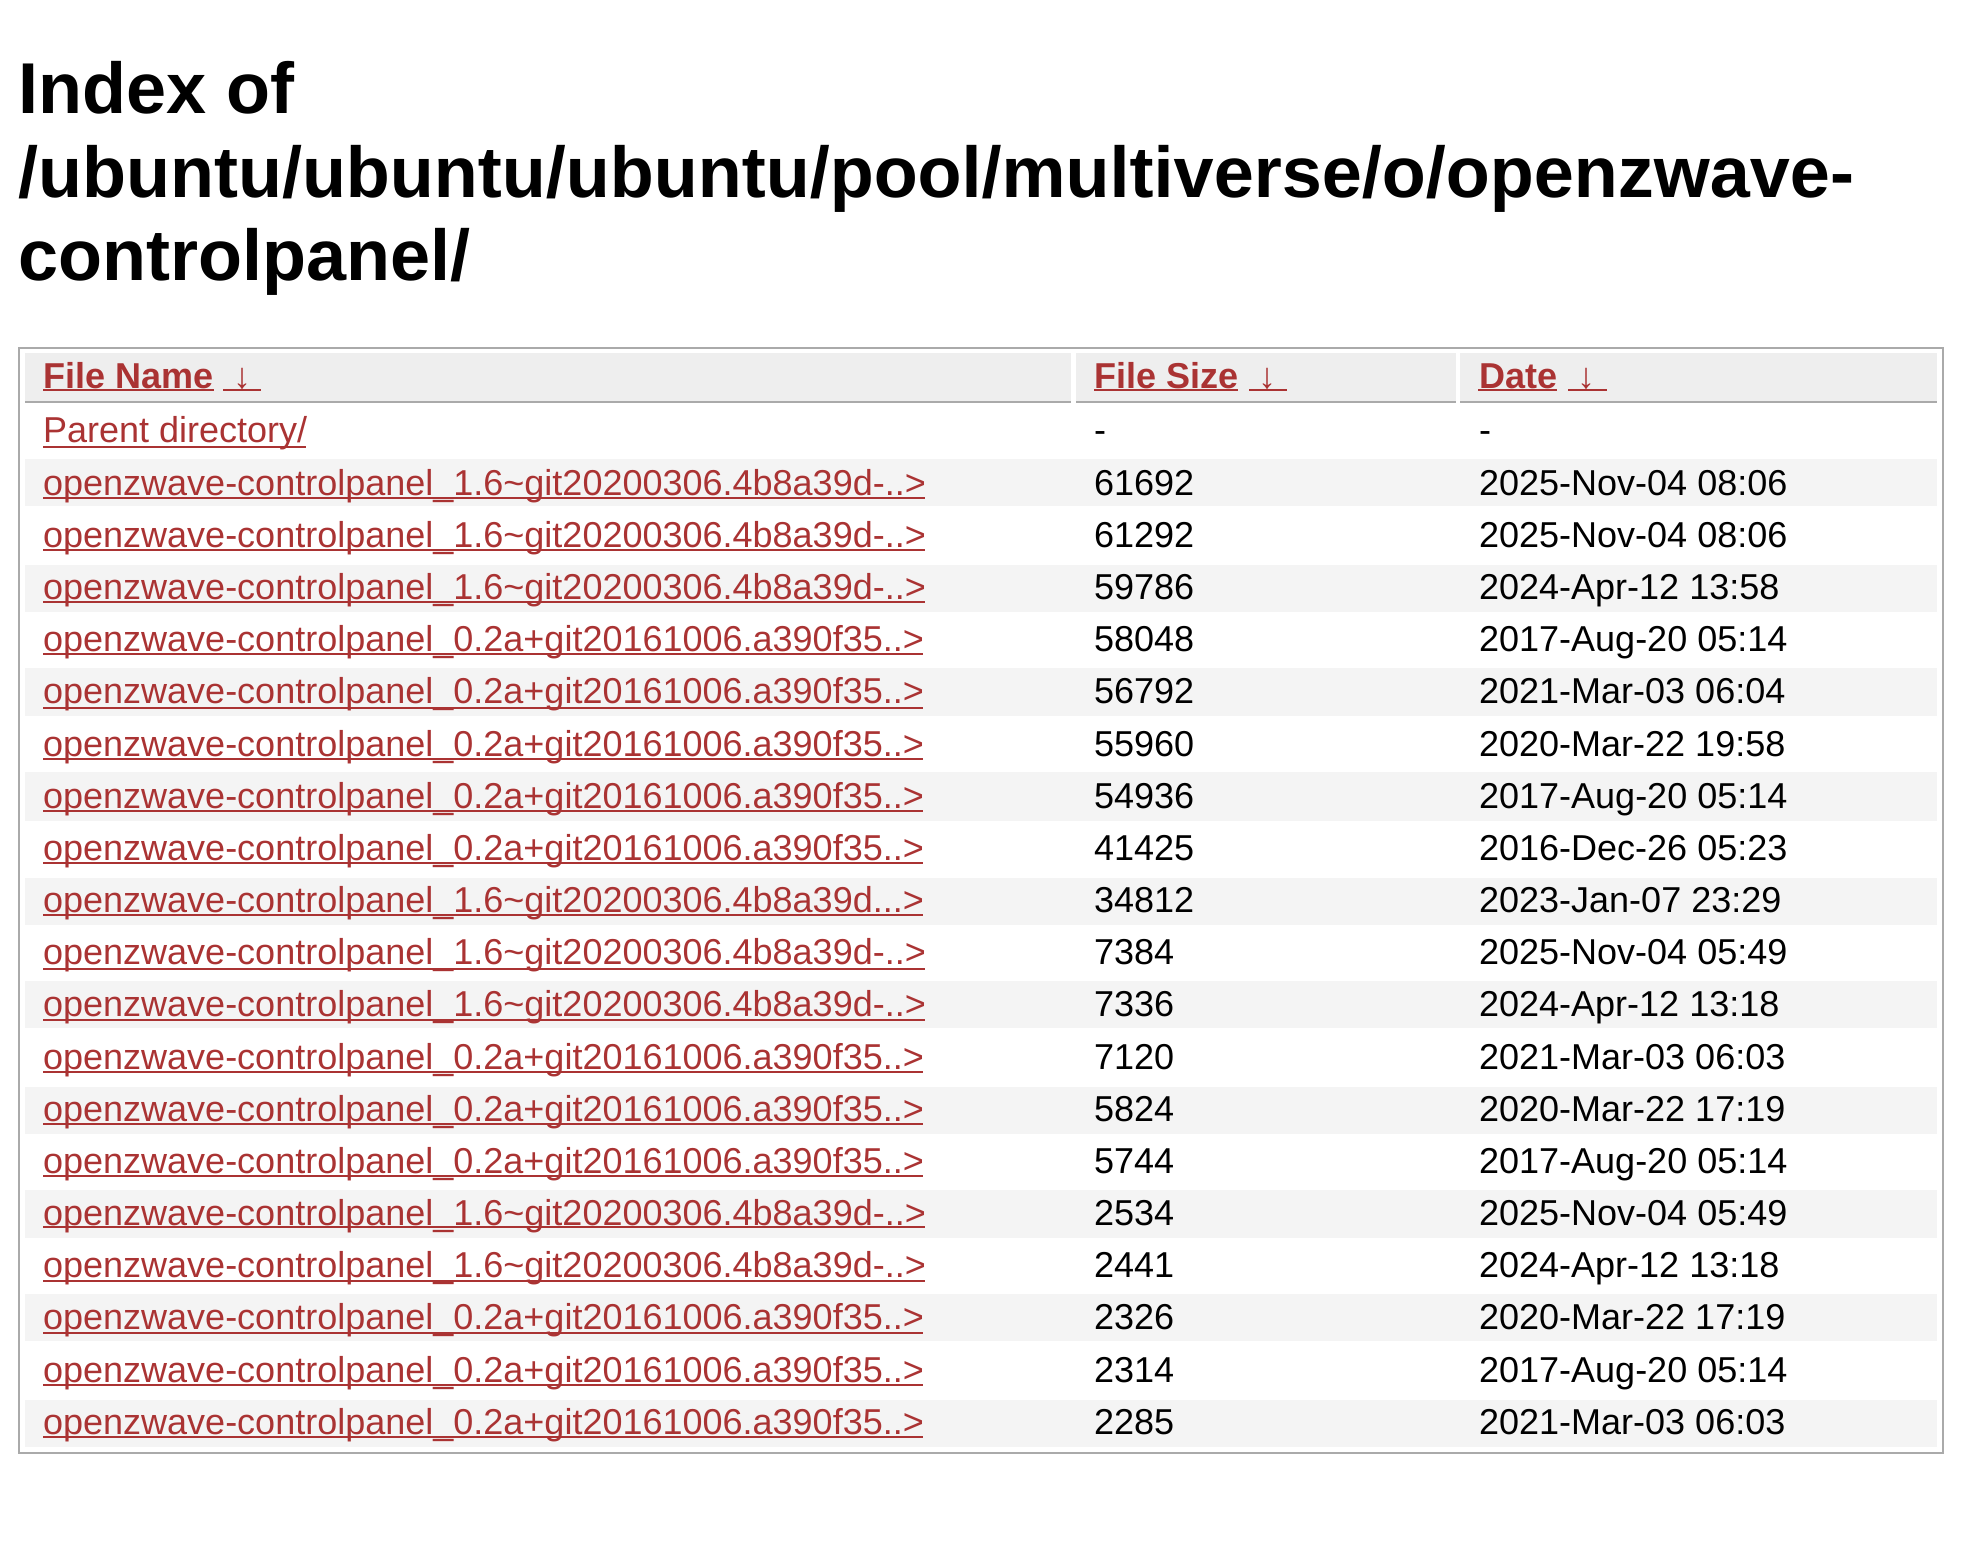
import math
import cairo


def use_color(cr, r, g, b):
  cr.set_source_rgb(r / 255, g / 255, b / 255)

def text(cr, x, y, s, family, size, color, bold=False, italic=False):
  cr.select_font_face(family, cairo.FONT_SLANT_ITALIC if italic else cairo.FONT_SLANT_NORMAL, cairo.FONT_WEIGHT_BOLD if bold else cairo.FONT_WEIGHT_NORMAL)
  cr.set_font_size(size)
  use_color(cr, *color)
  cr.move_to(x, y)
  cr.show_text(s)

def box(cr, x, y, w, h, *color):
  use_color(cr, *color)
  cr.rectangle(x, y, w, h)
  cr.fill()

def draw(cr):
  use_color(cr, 255, 255, 255)
  cr.paint()
  cr.rectangle(19, 348, 1924, 1105)
  use_color(cr, 170, 170, 170)
  cr.stroke()
  box(cr, 25, 353, 1046, 48, 238, 238, 238)
  box(cr, 25, 401, 1046, 2, 170, 170, 170)
  box(cr, 43, 389, 171, 2, 170, 51, 51)
  box(cr, 223, 389, 38, 2, 170, 51, 51)
  box(cr, 1076, 353, 380, 48, 238, 238, 238)
  box(cr, 1076, 401, 380, 2, 170, 170, 170)
  box(cr, 1094, 389, 144, 2, 170, 51, 51)
  box(cr, 1249, 389, 38, 2, 170, 51, 51)
  box(cr, 1460, 353, 477, 48, 238, 238, 238)
  box(cr, 1460, 401, 477, 2, 170, 170, 170)
  box(cr, 1478, 389, 79, 2, 170, 51, 51)
  box(cr, 1568, 389, 39, 2, 170, 51, 51)
  box(cr, 43, 446, 263, 2, 170, 51, 51)
  box(cr, 25, 459, 1912, 47, 244, 244, 244)
  box(cr, 43, 497, 882, 2, 170, 51, 51)
  box(cr, 43, 549, 882, 2, 170, 51, 51)
  box(cr, 25, 565, 1912, 47, 244, 244, 244)
  box(cr, 43, 601, 882, 2, 170, 51, 51)
  box(cr, 43, 653, 880, 2, 170, 51, 51)
  box(cr, 25, 668, 1912, 48, 244, 244, 244)
  box(cr, 43, 707, 880, 2, 170, 51, 51)
  box(cr, 43, 758, 880, 2, 170, 51, 51)
  box(cr, 25, 772, 1912, 49, 244, 244, 244)
  box(cr, 43, 810, 880, 2, 170, 51, 51)
  box(cr, 43, 862, 880, 2, 170, 51, 51)
  box(cr, 25, 878, 1912, 47, 244, 244, 244)
  box(cr, 43, 914, 880, 2, 170, 51, 51)
  box(cr, 43, 968, 882, 2, 170, 51, 51)
  box(cr, 25, 981, 1912, 47, 244, 244, 244)
  box(cr, 43, 1019, 882, 2, 170, 51, 51)
  box(cr, 43, 1071, 880, 2, 170, 51, 51)
  box(cr, 25, 1087, 1912, 47, 244, 244, 244)
  box(cr, 43, 1123, 880, 2, 170, 51, 51)
  box(cr, 43, 1175, 880, 2, 170, 51, 51)
  box(cr, 25, 1190, 1912, 48, 244, 244, 244)
  box(cr, 43, 1226, 882, 2, 170, 51, 51)
  box(cr, 43, 1280, 882, 2, 170, 51, 51)
  box(cr, 25, 1294, 1912, 47, 244, 244, 244)
  box(cr, 43, 1332, 880, 2, 170, 51, 51)
  box(cr, 43, 1384, 880, 2, 170, 51, 51)
  box(cr, 25, 1400, 1912, 47, 244, 244, 244)
  box(cr, 43, 1436, 880, 2, 170, 51, 51)
  text(cr, 18, 113, "Index of", "Liberation Sans", 72, (0, 0, 0), bold=True)
  text(cr, 18, 197, "/ubuntu/ubuntu/ubuntu/pool/multiverse/o/openzwave-", "Liberation Sans", 72, (0, 0, 0), bold=True)
  text(cr, 18, 280, "controlpanel/", "Liberation Sans", 72, (0, 0, 0), bold=True)
  text(cr, 43, 388, "File Name", "Liberation Sans", 36, (170, 51, 51), bold=True)
  text(cr, 233, 388, "↓", "Liberation Sans", 36, (170, 51, 51), bold=True)
  text(cr, 1094, 388, "File Size", "Liberation Sans", 36, (170, 51, 51), bold=True)
  text(cr, 1258, 388, "↓", "Liberation Sans", 36, (170, 51, 51), bold=True)
  text(cr, 1479, 388, "Date", "Liberation Sans", 36, (170, 51, 51), bold=True)
  text(cr, 1577, 388, "↓", "Liberation Sans", 36, (170, 51, 51), bold=True)
  text(cr, 43, 442, "Parent directory/", "Liberation Sans", 36, (170, 51, 51))
  text(cr, 1094, 442, "-", "Liberation Sans", 36, (0, 0, 0))
  text(cr, 1479, 442, "-", "Liberation Sans", 36, (0, 0, 0))
  text(cr, 43, 495, "openzwave-controlpanel_1.6~git20200306.4b8a39d-..>", "Liberation Sans", 36, (170, 51, 51))
  text(cr, 1094, 495, "61692", "Liberation Sans", 36, (0, 0, 0))
  text(cr, 1479, 495, "2025-Nov-04 08:06", "Liberation Sans", 36, (0, 0, 0))
  text(cr, 43, 547, "openzwave-controlpanel_1.6~git20200306.4b8a39d-..>", "Liberation Sans", 36, (170, 51, 51))
  text(cr, 1094, 547, "61292", "Liberation Sans", 36, (0, 0, 0))
  text(cr, 1479, 547, "2025-Nov-04 08:06", "Liberation Sans", 36, (0, 0, 0))
  text(cr, 43, 599, "openzwave-controlpanel_1.6~git20200306.4b8a39d-..>", "Liberation Sans", 36, (170, 51, 51))
  text(cr, 1094, 599, "59786", "Liberation Sans", 36, (0, 0, 0))
  text(cr, 1479, 599, "2024-Apr-12 13:58", "Liberation Sans", 36, (0, 0, 0))
  text(cr, 43, 651, "openzwave-controlpanel_0.2a+git20161006.a390f35..>", "Liberation Sans", 36, (170, 51, 51))
  text(cr, 1094, 651, "58048", "Liberation Sans", 36, (0, 0, 0))
  text(cr, 1479, 651, "2017-Aug-20 05:14", "Liberation Sans", 36, (0, 0, 0))
  text(cr, 43, 703, "openzwave-controlpanel_0.2a+git20161006.a390f35..>", "Liberation Sans", 36, (170, 51, 51))
  text(cr, 1094, 703, "56792", "Liberation Sans", 36, (0, 0, 0))
  text(cr, 1479, 703, "2021-Mar-03 06:04", "Liberation Sans", 36, (0, 0, 0))
  text(cr, 43, 756, "openzwave-controlpanel_0.2a+git20161006.a390f35..>", "Liberation Sans", 36, (170, 51, 51))
  text(cr, 1094, 756, "55960", "Liberation Sans", 36, (0, 0, 0))
  text(cr, 1479, 756, "2020-Mar-22 19:58", "Liberation Sans", 36, (0, 0, 0))
  text(cr, 43, 808, "openzwave-controlpanel_0.2a+git20161006.a390f35..>", "Liberation Sans", 36, (170, 51, 51))
  text(cr, 1094, 808, "54936", "Liberation Sans", 36, (0, 0, 0))
  text(cr, 1479, 808, "2017-Aug-20 05:14", "Liberation Sans", 36, (0, 0, 0))
  text(cr, 43, 860, "openzwave-controlpanel_0.2a+git20161006.a390f35..>", "Liberation Sans", 36, (170, 51, 51))
  text(cr, 1094, 860, "41425", "Liberation Sans", 36, (0, 0, 0))
  text(cr, 1479, 860, "2016-Dec-26 05:23", "Liberation Sans", 36, (0, 0, 0))
  text(cr, 43, 912, "openzwave-controlpanel_1.6~git20200306.4b8a39d...>", "Liberation Sans", 36, (170, 51, 51))
  text(cr, 1094, 912, "34812", "Liberation Sans", 36, (0, 0, 0))
  text(cr, 1479, 912, "2023-Jan-07 23:29", "Liberation Sans", 36, (0, 0, 0))
  text(cr, 43, 964, "openzwave-controlpanel_1.6~git20200306.4b8a39d-..>", "Liberation Sans", 36, (170, 51, 51))
  text(cr, 1094, 964, "7384", "Liberation Sans", 36, (0, 0, 0))
  text(cr, 1479, 964, "2025-Nov-04 05:49", "Liberation Sans", 36, (0, 0, 0))
  text(cr, 43, 1016, "openzwave-controlpanel_1.6~git20200306.4b8a39d-..>", "Liberation Sans", 36, (170, 51, 51))
  text(cr, 1094, 1016, "7336", "Liberation Sans", 36, (0, 0, 0))
  text(cr, 1479, 1016, "2024-Apr-12 13:18", "Liberation Sans", 36, (0, 0, 0))
  text(cr, 43, 1069, "openzwave-controlpanel_0.2a+git20161006.a390f35..>", "Liberation Sans", 36, (170, 51, 51))
  text(cr, 1094, 1069, "7120", "Liberation Sans", 36, (0, 0, 0))
  text(cr, 1479, 1069, "2021-Mar-03 06:03", "Liberation Sans", 36, (0, 0, 0))
  text(cr, 43, 1121, "openzwave-controlpanel_0.2a+git20161006.a390f35..>", "Liberation Sans", 36, (170, 51, 51))
  text(cr, 1094, 1121, "5824", "Liberation Sans", 36, (0, 0, 0))
  text(cr, 1479, 1121, "2020-Mar-22 17:19", "Liberation Sans", 36, (0, 0, 0))
  text(cr, 43, 1173, "openzwave-controlpanel_0.2a+git20161006.a390f35..>", "Liberation Sans", 36, (170, 51, 51))
  text(cr, 1094, 1173, "5744", "Liberation Sans", 36, (0, 0, 0))
  text(cr, 1479, 1173, "2017-Aug-20 05:14", "Liberation Sans", 36, (0, 0, 0))
  text(cr, 43, 1225, "openzwave-controlpanel_1.6~git20200306.4b8a39d-..>", "Liberation Sans", 36, (170, 51, 51))
  text(cr, 1094, 1225, "2534", "Liberation Sans", 36, (0, 0, 0))
  text(cr, 1479, 1225, "2025-Nov-04 05:49", "Liberation Sans", 36, (0, 0, 0))
  text(cr, 43, 1277, "openzwave-controlpanel_1.6~git20200306.4b8a39d-..>", "Liberation Sans", 36, (170, 51, 51))
  text(cr, 1094, 1277, "2441", "Liberation Sans", 36, (0, 0, 0))
  text(cr, 1479, 1277, "2024-Apr-12 13:18", "Liberation Sans", 36, (0, 0, 0))
  text(cr, 43, 1329, "openzwave-controlpanel_0.2a+git20161006.a390f35..>", "Liberation Sans", 36, (170, 51, 51))
  text(cr, 1094, 1329, "2326", "Liberation Sans", 36, (0, 0, 0))
  text(cr, 1479, 1329, "2020-Mar-22 17:19", "Liberation Sans", 36, (0, 0, 0))
  text(cr, 43, 1382, "openzwave-controlpanel_0.2a+git20161006.a390f35..>", "Liberation Sans", 36, (170, 51, 51))
  text(cr, 1094, 1382, "2314", "Liberation Sans", 36, (0, 0, 0))
  text(cr, 1479, 1382, "2017-Aug-20 05:14", "Liberation Sans", 36, (0, 0, 0))
  text(cr, 43, 1434, "openzwave-controlpanel_0.2a+git20161006.a390f35..>", "Liberation Sans", 36, (170, 51, 51))
  text(cr, 1094, 1434, "2285", "Liberation Sans", 36, (0, 0, 0))
  text(cr, 1479, 1434, "2021-Mar-03 06:03", "Liberation Sans", 36, (0, 0, 0))


surface = cairo.ImageSurface(cairo.FORMAT_RGB24, 1961, 1541)
cr = cairo.Context(surface)
options = cairo.FontOptions()
options.set_hint_metrics(cairo.HINT_METRICS_OFF)
options.set_hint_style(cairo.HINT_STYLE_NONE)
cr.set_font_options(options)
cr.set_miter_limit(4)
draw(cr)
surface.write_to_png("out.png")
